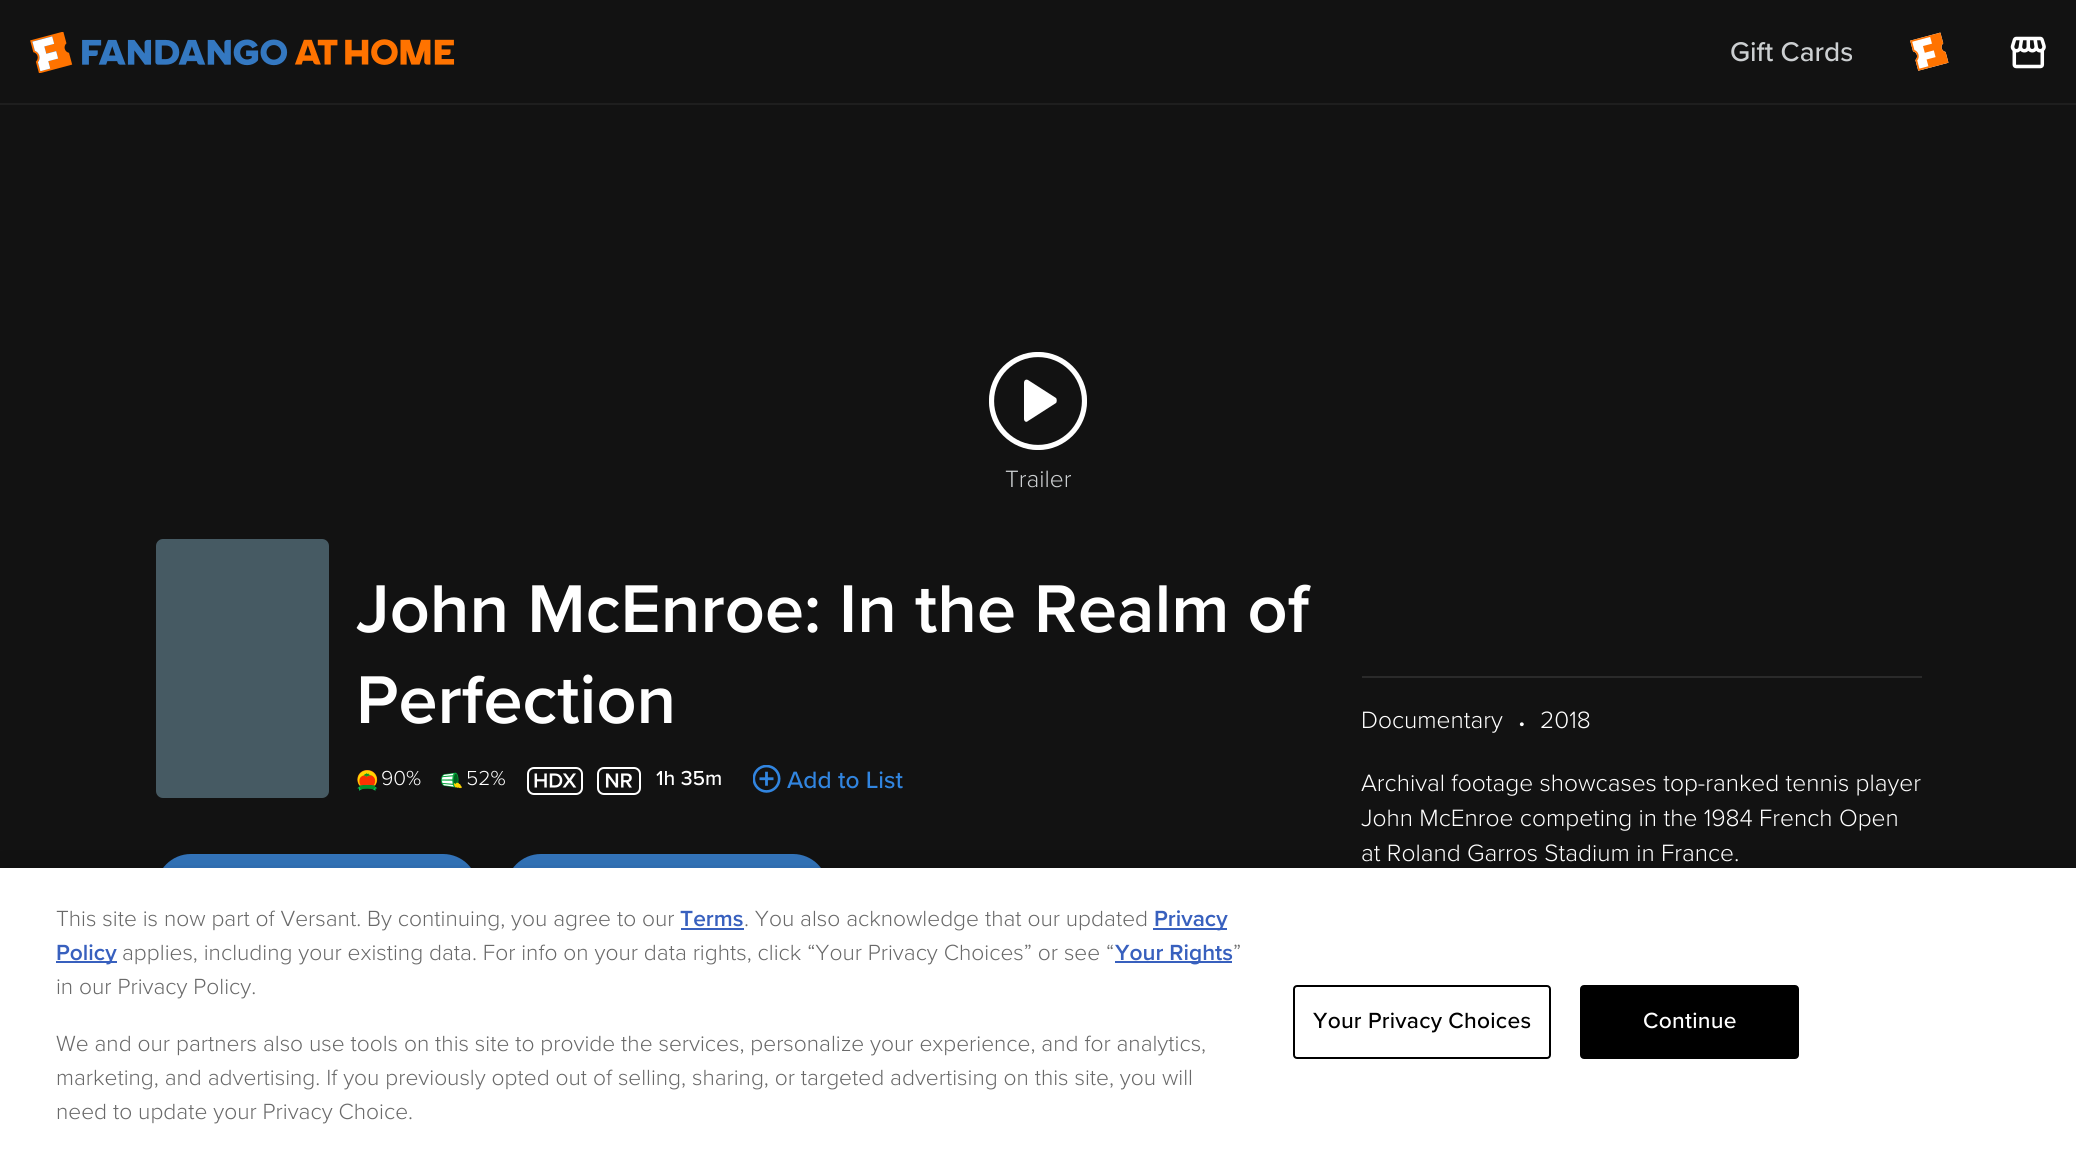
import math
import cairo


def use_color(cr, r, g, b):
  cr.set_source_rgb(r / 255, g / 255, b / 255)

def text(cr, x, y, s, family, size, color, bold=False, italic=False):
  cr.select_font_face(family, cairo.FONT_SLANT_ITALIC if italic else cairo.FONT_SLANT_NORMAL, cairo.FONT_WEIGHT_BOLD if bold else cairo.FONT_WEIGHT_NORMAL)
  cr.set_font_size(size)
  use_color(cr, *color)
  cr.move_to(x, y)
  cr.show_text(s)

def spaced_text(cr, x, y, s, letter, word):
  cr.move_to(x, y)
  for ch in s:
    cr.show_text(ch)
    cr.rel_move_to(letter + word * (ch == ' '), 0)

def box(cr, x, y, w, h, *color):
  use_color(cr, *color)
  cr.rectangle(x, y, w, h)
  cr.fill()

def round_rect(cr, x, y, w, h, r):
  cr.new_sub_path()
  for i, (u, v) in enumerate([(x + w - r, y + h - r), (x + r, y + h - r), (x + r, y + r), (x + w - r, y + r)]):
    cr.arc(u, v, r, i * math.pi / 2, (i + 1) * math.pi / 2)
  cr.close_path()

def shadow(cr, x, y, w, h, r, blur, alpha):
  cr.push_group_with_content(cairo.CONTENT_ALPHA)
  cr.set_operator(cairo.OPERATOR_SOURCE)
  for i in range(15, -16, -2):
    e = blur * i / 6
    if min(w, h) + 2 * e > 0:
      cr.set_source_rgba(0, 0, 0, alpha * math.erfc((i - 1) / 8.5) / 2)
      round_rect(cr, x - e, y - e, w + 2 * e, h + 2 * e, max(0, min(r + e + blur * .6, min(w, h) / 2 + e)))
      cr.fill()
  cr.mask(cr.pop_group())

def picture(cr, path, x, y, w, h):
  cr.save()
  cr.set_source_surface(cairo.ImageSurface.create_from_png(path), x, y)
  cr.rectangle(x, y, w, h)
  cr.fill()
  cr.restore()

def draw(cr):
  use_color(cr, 18, 18, 18)
  cr.paint()
  box(cr, 0, 103, 2076, 2, 30, 30, 30)
  picture(cr, "img_01.png", 30, 32, 425, 41)
  picture(cr, "img_02.png", 1910, 32, 39, 39)
  picture(cr, "img_03.png", 2010, 36, 36, 33)
  cr.save()
  cr.rectangle(989, 352, 98, 98)
  cr.clip()
  cr.arc(1038, 401, 46.5, 0, 2 * math.pi)
  use_color(cr, 255, 255, 255)
  cr.set_line_width(5.2)
  cr.stroke()
  cr.restore()
  use_color(cr, 255, 255, 255)
  cr.set_fill_rule(cairo.FILL_RULE_EVEN_ODD)
  cr.new_path()
  cr.move_to(1056, 398)
  cr.line_to(1028, 380)
  cr.curve_to(1026, 379, 1024, 380, 1024, 383)
  cr.line_to(1024, 419)
  cr.curve_to(1024, 421, 1026, 423, 1028, 421)
  cr.line_to(1056, 403)
  cr.curve_to(1057, 402, 1057, 399, 1056, 398)
  cr.close_path()
  cr.fill()
  use_color(cr, 70, 90, 99)
  round_rect(cr, 156, 539, 173, 259, 7)
  cr.fill()
  picture(cr, "img_04.png", 357, 770, 21, 21)
  picture(cr, "img_05.png", 441, 772, 21, 17)
  picture(cr, "img_06.png", 527, 767, 56, 28)
  picture(cr, "img_07.png", 597, 767, 44, 28)
  picture(cr, "img_08.png", 753, 765, 28, 28)
  box(cr, 1362, 676, 560, 2, 42, 42, 42)
  use_color(cr, 52, 120, 193)
  round_rect(cr, 156, 854, 322, 70, 35)
  cr.fill()
  round_rect(cr, 506, 854, 322, 70, 35)
  cr.fill()
  use_color(cr, 0, 0, 0)
  shadow(cr, 0, 868, 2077, 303, 0, 16, 0.2)
  box(cr, 0, 868, 2076, 302, 255, 255, 255)
  box(cr, 681, 928, 63, 2, 56, 96, 190)
  box(cr, 1153, 928, 74, 2, 56, 96, 190)
  box(cr, 56, 961, 61, 2, 56, 96, 190)
  box(cr, 1115, 961, 117, 2, 56, 96, 190)
  round_rect(cr, 1294, 986, 256, 72, 3)
  use_color(cr, 0, 0, 0)
  cr.stroke()
  round_rect(cr, 1581, 986, 217, 72, 3)
  cr.fill_preserve()
  cr.stroke()
  text(cr, 1730, 61, "Gift Cards", "Proxima Nova Medium", 28, (204, 207, 209))
  text(cr, 1005, 487, "Trailer", "Proxima Nova Light", 24.5, (204, 207, 209))
  text(cr, 356, 632, "John McEnroe: In the Realm of", "Proxima Nova SemiBold", 70, (255, 255, 255))
  text(cr, 356, 723, "Perfection", "Proxima Nova SemiBold", 70, (255, 255, 255))
  text(cr, 381, 785, "90%", "Proxima Nova Light", 21, (255, 255, 255))
  text(cr, 466, 785, "52%", "Proxima Nova Light", 21, (255, 255, 255))
  text(cr, 656, 785, "1h 35m", "Proxima Nova Medium", 21, (255, 255, 255))
  text(cr, 787, 788, "Add to List", "Proxima Nova Medium", 24.5, (49, 133, 224))
  text(cr, 1361, 728, "Documentary", "Proxima Nova Light", 24.5, (255, 255, 255))
  text(cr, 1517, 735, "·", "Proxima Nova Light", 44, (255, 255, 255))
  text(cr, 1540, 728, "2018", "Proxima Nova Light", 24.5, (255, 255, 255))
  text(cr, 1361, 791, "Archival footage showcases top-ranked tennis player", "Proxima Nova Light", 24.5, (255, 255, 255))
  text(cr, 1361, 826, "John McEnroe competing in the 1984 French Open", "Proxima Nova Light", 24.5, (255, 255, 255))
  text(cr, 1361, 861, "at Roland Garros Stadium in France.", "Proxima Nova Light", 24.5, (255, 255, 255))
  text(cr, 56, 926, "This site is now part of Versant. By continuing, you agree to our", "Proxima Nova Light", 22.75, (105, 105, 105))
  text(cr, 680, 926, "Terms", "Proxima Nova SemiBold", 22.75, (56, 96, 190))
  text(cr, 744, 926, ". You also acknowledge that our updated", "Proxima Nova Light", 22.75, (105, 105, 105))
  text(cr, 1154, 926, "Privacy", "Proxima Nova SemiBold", 22.75, (56, 96, 190))
  text(cr, 56, 960, "Policy", "Proxima Nova SemiBold", 22.75, (56, 96, 190))
  text(cr, 122, 960, "applies, including your existing data. For info on your data rights, click “Your Privacy Choices” or see “", "Proxima Nova Light", 22.75, (105, 105, 105))
  text(cr, 1115, 960, "Your Rights", "Proxima Nova SemiBold", 22.75, (56, 96, 190))
  text(cr, 1233, 960, "”", "Proxima Nova Light", 22.75, (105, 105, 105))
  text(cr, 56, 994, "in our Privacy Policy.", "Proxima Nova Light", 22.75, (105, 105, 105))
  text(cr, 56, 1051, "We and our partners also use tools on this site to provide the services, personalize your experience, and for analytics,", "Proxima Nova Light", 22.75, (105, 105, 105))
  text(cr, 56, 1085, "marketing, and advertising. If you previously opted out of selling, sharing, or targeted advertising on this site, you will", "Proxima Nova Light", 22.75, (105, 105, 105))
  text(cr, 56, 1119, "need to update your Privacy Choice.", "Proxima Nova Light", 22.75, (105, 105, 105))
  cr.select_font_face("Proxima Nova Medium")
  use_color(cr, 0, 0, 0)
  spaced_text(cr, 1313, 1028, "Your Privacy Choices", 0.25, 0)
  use_color(cr, 255, 255, 255)
  spaced_text(cr, 1643, 1028, "Continue", 0.25, 0)


surface = cairo.ImageSurface(cairo.FORMAT_RGB24, 2076, 1170)
cr = cairo.Context(surface)
options = cairo.FontOptions()
options.set_hint_metrics(cairo.HINT_METRICS_OFF)
options.set_hint_style(cairo.HINT_STYLE_NONE)
cr.set_font_options(options)
cr.set_miter_limit(4)
draw(cr)
surface.write_to_png("out.png")
